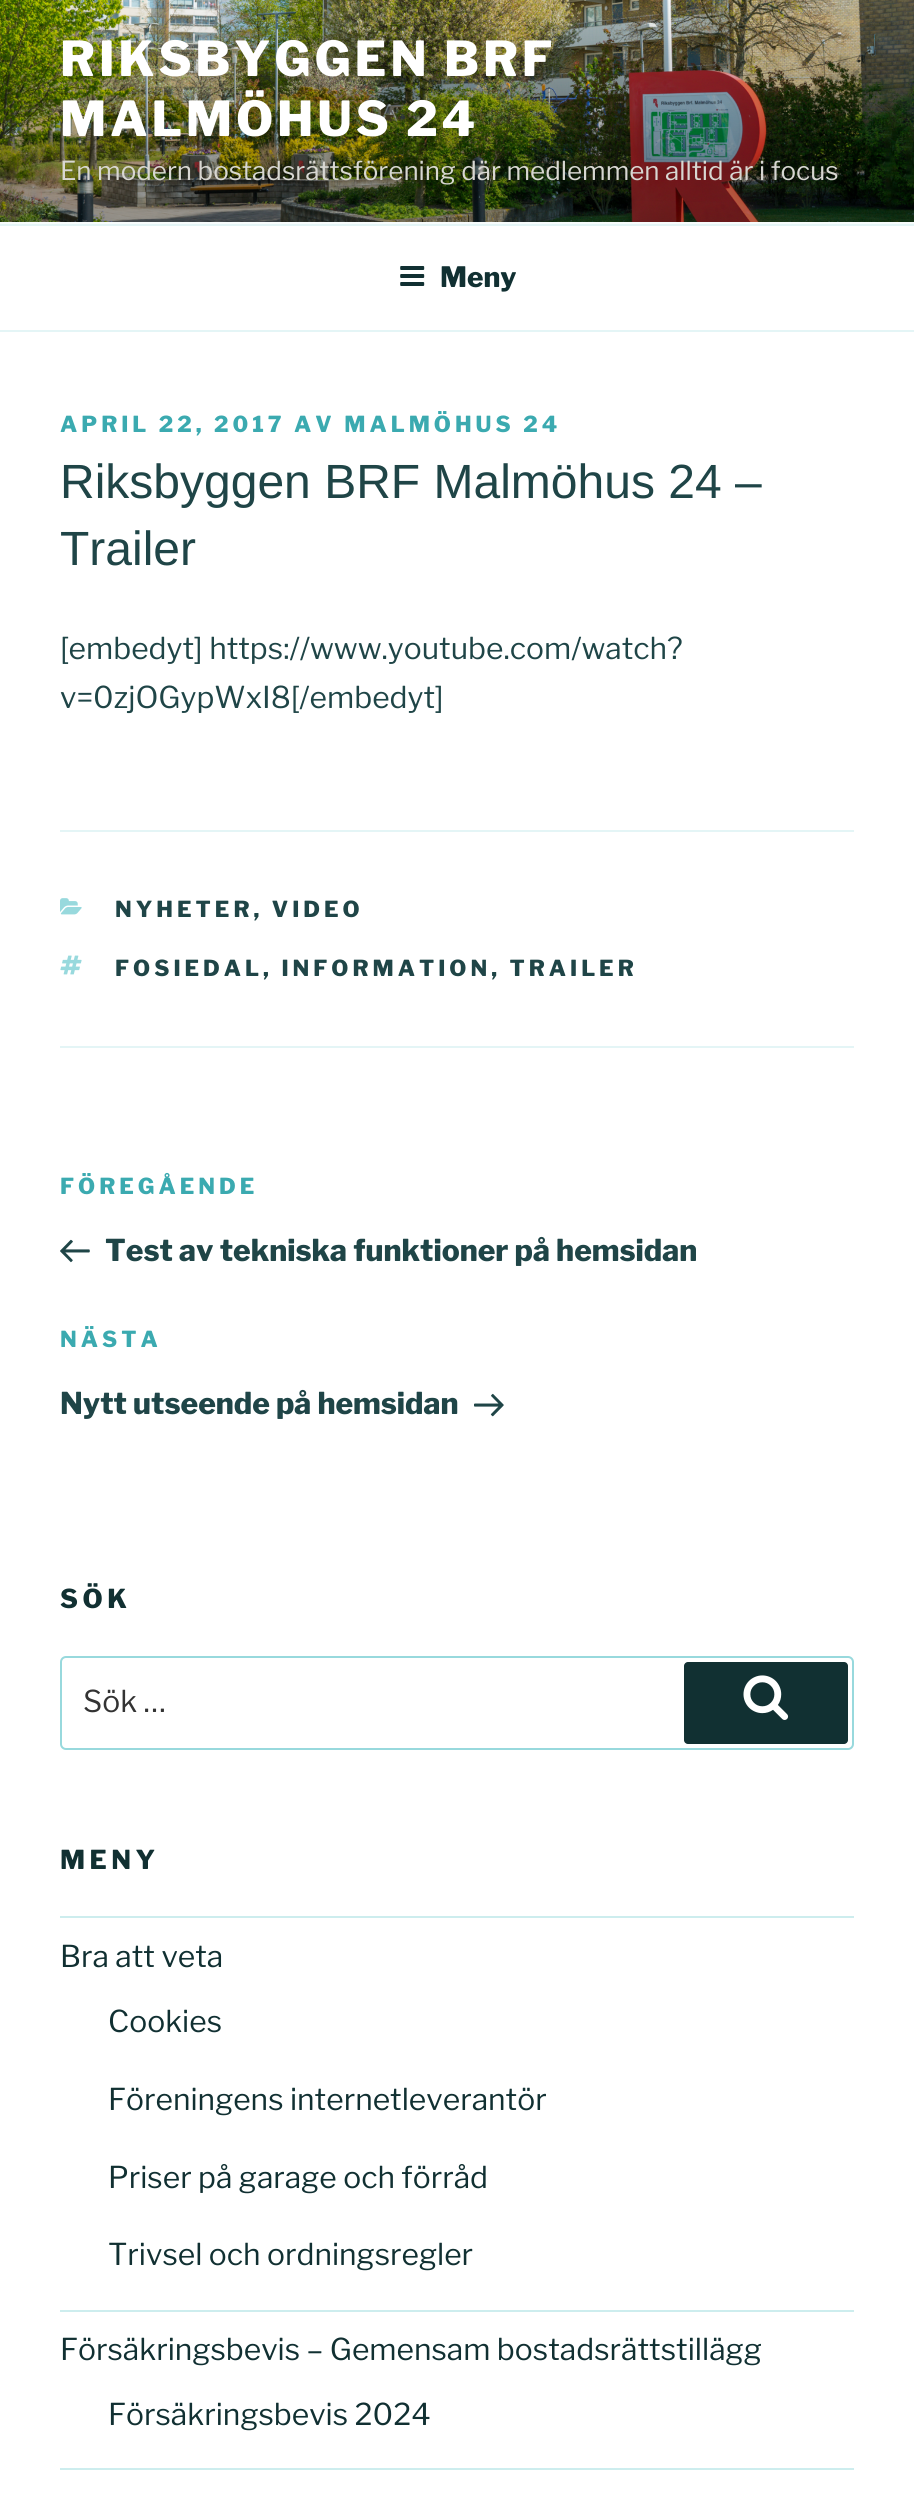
import math
import cairo


def use_color(cr, r, g, b):
  cr.set_source_rgb(r / 255, g / 255, b / 255)

def text(cr, x, y, s, family, size, color, bold=False, italic=False):
  cr.select_font_face(family, cairo.FONT_SLANT_ITALIC if italic else cairo.FONT_SLANT_NORMAL, cairo.FONT_WEIGHT_BOLD if bold else cairo.FONT_WEIGHT_NORMAL)
  cr.set_font_size(size)
  use_color(cr, *color)
  cr.move_to(x, y)
  cr.show_text(s)

def spaced_text(cr, x, y, s, letter, word):
  cr.move_to(x, y)
  for ch in s:
    cr.show_text(ch)
    cr.rel_move_to(letter + word * (ch == ' '), 0)

def box(cr, x, y, w, h, *color):
  use_color(cr, *color)
  cr.rectangle(x, y, w, h)
  cr.fill()

def round_rect(cr, x, y, w, h, r):
  cr.new_sub_path()
  for i, (u, v) in enumerate([(x + w - r, y + h - r), (x + r, y + h - r), (x + r, y + r), (x + w - r, y + r)]):
    cr.arc(u, v, r, i * math.pi / 2, (i + 1) * math.pi / 2)
  cr.close_path()

def picture(cr, path, x, y, w, h):
  cr.save()
  cr.set_source_surface(cairo.ImageSurface.create_from_png(path), x, y)
  cr.rectangle(x, y, w, h)
  cr.fill()
  cr.restore()

def draw(cr):
  use_color(cr, 255, 255, 255)
  cr.paint()
  box(cr, 0, 222, 914, 2, 247, 252, 252)
  picture(cr, "img_01.png", 0, 0, 914, 222)
  box(cr, 0, 224, 914, 2, 228, 245, 246)
  box(cr, 0, 330, 914, 2, 228, 245, 246)
  picture(cr, "img_02.png", 400, 266, 25, 20)
  box(cr, 60, 830, 794, 2, 228, 245, 246)
  box(cr, 60, 1046, 794, 2, 228, 245, 246)
  picture(cr, "img_03.png", 60, 898, 22, 17)
  picture(cr, "img_04.png", 60, 955, 22, 20)
  picture(cr, "img_05.png", 60, 1239, 30, 24)
  picture(cr, "img_06.png", 474, 1393, 30, 24)
  round_rect(cr, 61, 1657, 792, 92, 5)
  use_color(cr, 152, 217, 221)
  cr.stroke()
  use_color(cr, 17, 48, 50)
  round_rect(cr, 684, 1662, 164, 82, 4)
  cr.fill()
  picture(cr, "img_07.png", 743, 1675, 46, 45)
  box(cr, 60, 1916, 794, 2, 205, 237, 238)
  box(cr, 60, 2310, 794, 2, 205, 237, 238)
  box(cr, 60, 2468, 794, 2, 205, 237, 238)
  cr.select_font_face("Libre Franklin Thin")
  cr.set_font_size(48)
  use_color(cr, 255, 255, 255)
  spaced_text(cr, 60, 76, "RIKSBYGGEN BRF", 3.8, 0)
  spaced_text(cr, 60, 136, "MALMÖHUS 24", 3.8, 0)
  text(cr, 60, 180, "En modern bostadsrättsförening där medlemmen alltid är i focus", "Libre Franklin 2 Thin", 26, (216, 215, 210))
  text(cr, 440, 287, "Meny", "Libre Franklin Thin", 28, (17, 48, 50))
  cr.set_font_size(22)
  use_color(cr, 59, 170, 176)
  spaced_text(cr, 60, 432, "APRIL 22, 2017 AV MALMÖHUS 24", 4, 0)
  text(cr, 60, 498, "Riksbyggen BRF Malmöhus 24 –", "Liberation Sans", 48, (31, 69, 71))
  text(cr, 60, 565, "Trailer", "Liberation Sans", 48, (31, 69, 71))
  text(cr, 60, 659, "[embedyt] https://www.youtube.com/watch?", "Libre Franklin 2 Thin", 30, (31, 69, 71))
  text(cr, 60, 708, "v=0zjOGypWxI8[/embedyt]", "Libre Franklin 2 Thin", 30, (31, 69, 71))
  cr.select_font_face("Libre Franklin Thin")
  cr.set_font_size(22)
  spaced_text(cr, 115, 917, "NYHETER, VIDEO", 4, 0)
  spaced_text(cr, 115, 976, "FOSIEDAL, INFORMATION, TRAILER", 4, 0)
  use_color(cr, 59, 170, 176)
  spaced_text(cr, 60, 1194, "FÖREGÅENDE", 4, 0)
  text(cr, 105, 1261, "Test av tekniska funktioner på hemsidan", "Libre Franklin Thin", 30, (31, 69, 71))
  cr.set_font_size(22)
  use_color(cr, 59, 170, 176)
  spaced_text(cr, 60, 1347, "NÄSTA", 4, 0)
  text(cr, 60, 1414, "Nytt utseende på hemsidan", "Libre Franklin Thin", 30, (31, 69, 71))
  cr.set_font_size(26)
  use_color(cr, 17, 48, 50)
  spaced_text(cr, 60, 1608, "SÖK", 4.5, 0)
  text(cr, 83, 1712, "Sök …", "Libre Franklin 2 Thin", 30, (51, 51, 51))
  cr.select_font_face("Libre Franklin Thin")
  cr.set_font_size(26)
  use_color(cr, 17, 48, 50)
  spaced_text(cr, 60, 1869, "MENY", 4.5, 0)
  text(cr, 60, 1967, "Bra att veta", "Libre Franklin 2 Thin", 30, (17, 48, 50))
  text(cr, 108, 2032, "Cookies", "Libre Franklin 2 Thin", 30, (17, 48, 50))
  text(cr, 108, 2110, "Föreningens internetleverantör", "Libre Franklin 2 Thin", 30, (17, 48, 50))
  text(cr, 108, 2188, "Priser på garage och förråd", "Libre Franklin 2 Thin", 30, (17, 48, 50))
  text(cr, 108, 2265, "Trivsel och ordningsregler", "Libre Franklin 2 Thin", 30, (17, 48, 50))
  text(cr, 60, 2360, "Försäkringsbevis – Gemensam bostadsrättstillägg", "Libre Franklin 2 Thin", 30, (17, 48, 50))
  text(cr, 108, 2425, "Försäkringsbevis 2024", "Libre Franklin 2 Thin", 30, (17, 48, 50))


surface = cairo.ImageSurface(cairo.FORMAT_RGB24, 914, 2493)
cr = cairo.Context(surface)
options = cairo.FontOptions()
options.set_hint_metrics(cairo.HINT_METRICS_OFF)
options.set_hint_style(cairo.HINT_STYLE_NONE)
cr.set_font_options(options)
cr.set_miter_limit(4)
draw(cr)
surface.write_to_png("out.png")
